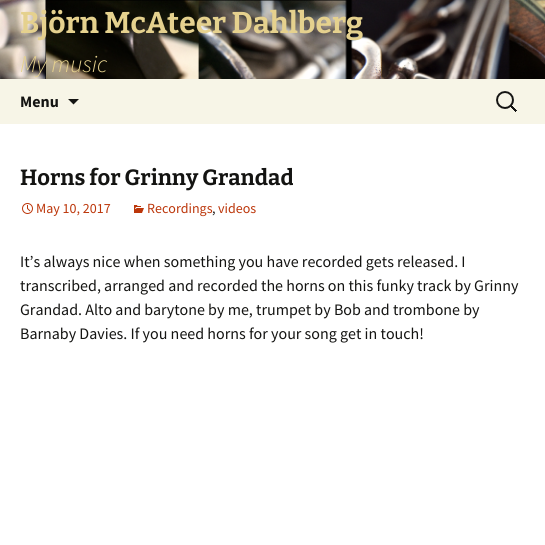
import math
import cairo


def use_color(cr, r, g, b):
  cr.set_source_rgb(r / 255, g / 255, b / 255)

def text(cr, x, y, s, family, size, color, bold=False, italic=False):
  cr.select_font_face(family, cairo.FONT_SLANT_ITALIC if italic else cairo.FONT_SLANT_NORMAL, cairo.FONT_WEIGHT_BOLD if bold else cairo.FONT_WEIGHT_NORMAL)
  cr.set_font_size(size)
  use_color(cr, *color)
  cr.move_to(x, y)
  cr.show_text(s)

def box(cr, x, y, w, h, *color):
  use_color(cr, *color)
  cr.rectangle(x, y, w, h)
  cr.fill()

def picture(cr, path, x, y, w, h):
  cr.save()
  cr.set_source_surface(cairo.ImageSurface.create_from_png(path), x, y)
  cr.rectangle(x, y, w, h)
  cr.fill()
  cr.restore()

def draw(cr):
  use_color(cr, 255, 255, 255)
  cr.paint()
  picture(cr, "img_01.png", 0, 0, 545, 79)
  box(cr, 0, 79, 545, 45, 247, 245, 231)
  use_color(cr, 20, 20, 18)
  cr.new_path()
  cr.move_to(68, 99)
  cr.line_to(79, 99)
  cr.line_to(73.5, 104.5)
  cr.close_path()
  cr.fill()
  picture(cr, "img_02.png", 496, 91, 21, 21)
  picture(cr, "img_03.png", 22, 203, 11, 11)
  picture(cr, "img_04.png", 134, 205, 10, 8)
  text(cr, 20, 33, "Björn McAteer Dahlberg", "Bitter Thin", 30, (229, 209, 142))
  text(cr, 20, 72, "My music", "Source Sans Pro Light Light", 24, (229, 209, 142), italic=True)
  text(cr, 20, 107, "Menu", "Source Sans Pro", 16, (20, 20, 18), bold=True)
  text(cr, 20, 185, "Horns for Grinny Grandad", "Bitter Thin", 22, (20, 20, 18))
  text(cr, 36, 213, "May 10, 2017", "Source Sans Pro", 14, (188, 54, 10))
  text(cr, 147, 213, "Recordings", "Source Sans Pro", 14, (188, 54, 10))
  text(cr, 212, 213, ",", "Source Sans Pro", 14, (20, 20, 18))
  text(cr, 218, 213, "videos", "Source Sans Pro", 14, (188, 54, 10))
  text(cr, 20, 267, "It’s always nice when something you have recorded gets released. I", "Source Sans Pro", 16, (20, 20, 18))
  text(cr, 20, 291, "transcribed, arranged and recorded the horns on this funky track by Grinny", "Source Sans Pro", 16, (20, 20, 18))
  text(cr, 20, 315, "Grandad. Alto and barytone by me, trumpet by Bob and trombone by", "Source Sans Pro", 16, (20, 20, 18))
  text(cr, 20, 339, "Barnaby Davies. If you need horns for your song get in touch!", "Source Sans Pro", 16, (20, 20, 18))


surface = cairo.ImageSurface(cairo.FORMAT_RGB24, 545, 545)
cr = cairo.Context(surface)
options = cairo.FontOptions()
options.set_hint_metrics(cairo.HINT_METRICS_OFF)
options.set_hint_style(cairo.HINT_STYLE_NONE)
cr.set_font_options(options)
cr.set_miter_limit(4)
draw(cr)
surface.write_to_png("out.png")
